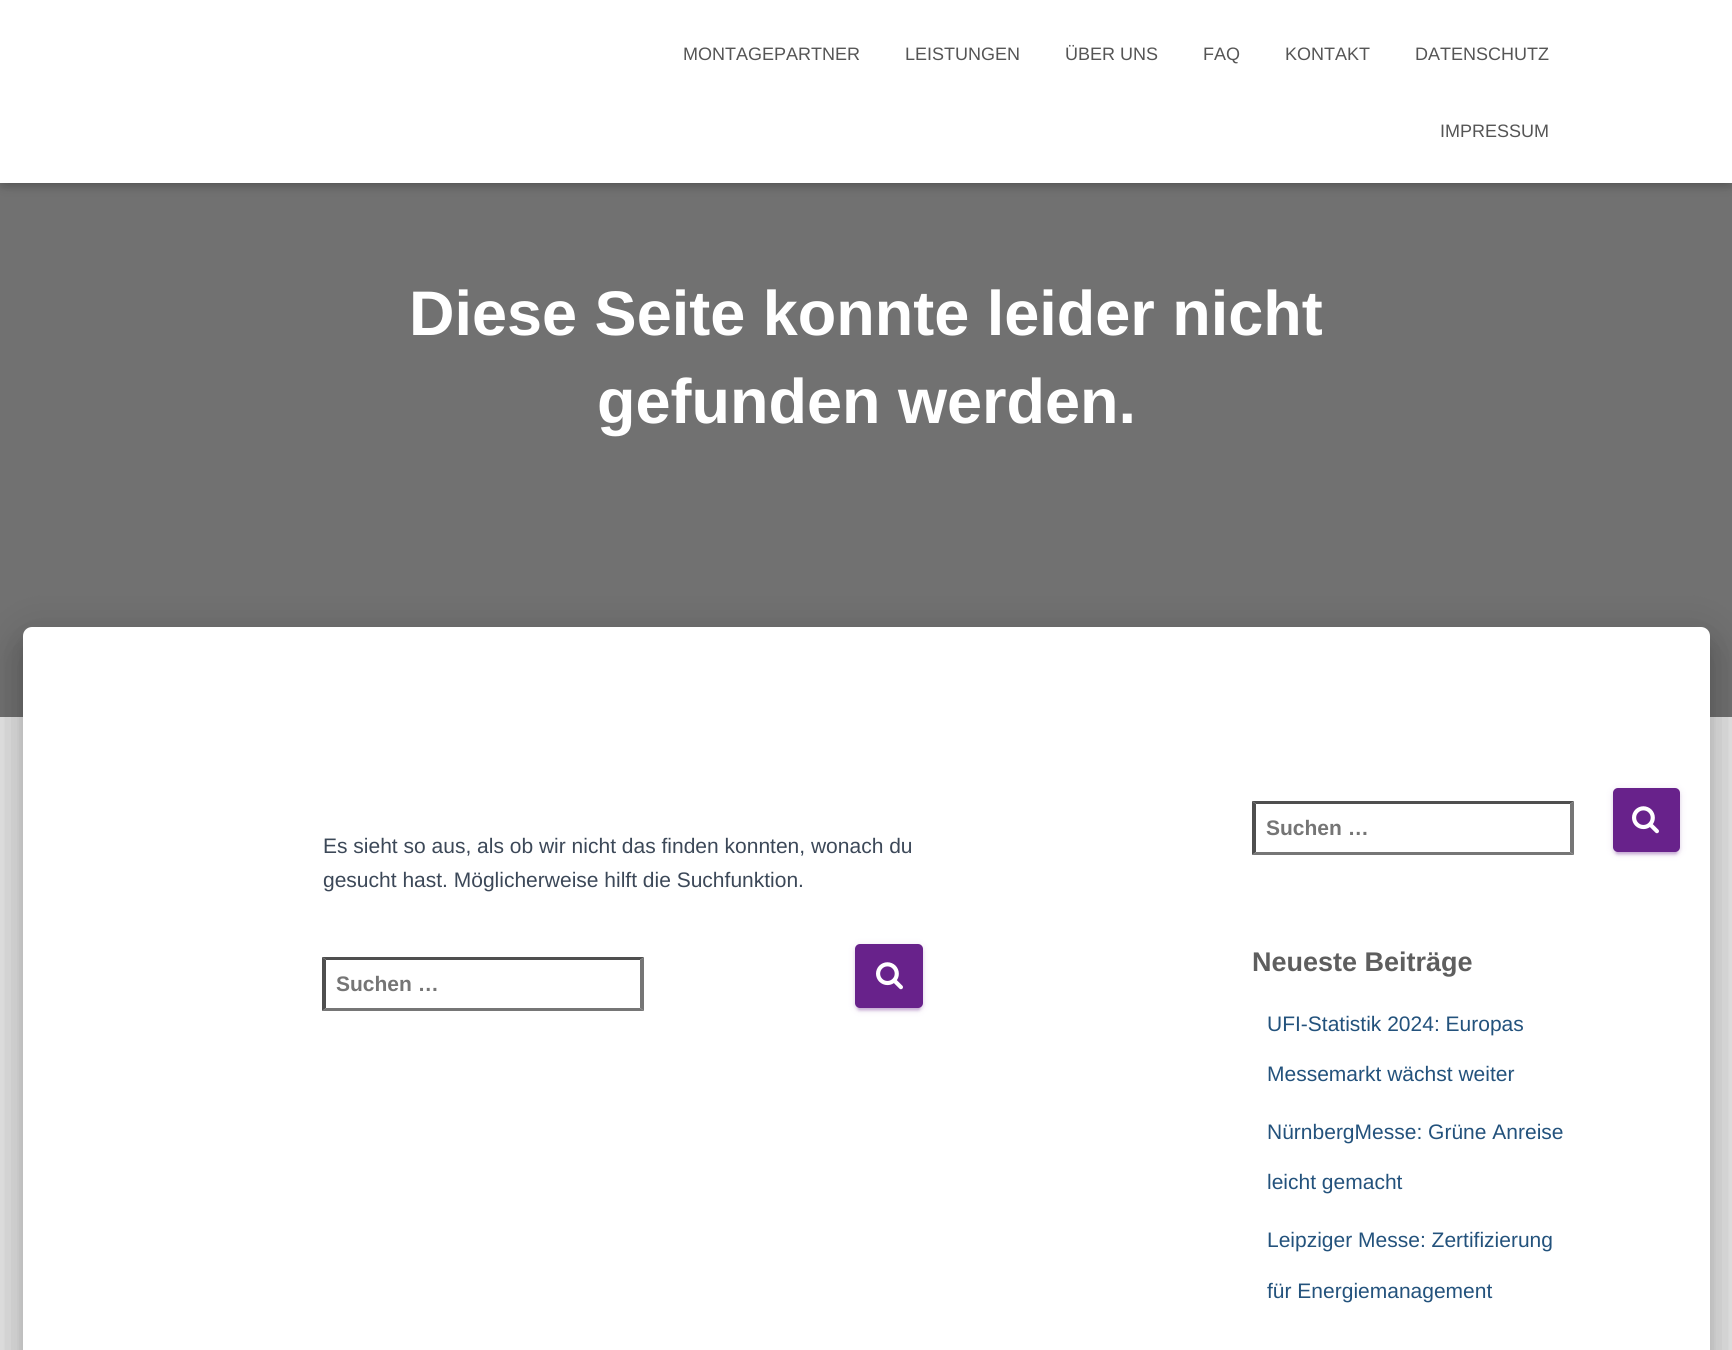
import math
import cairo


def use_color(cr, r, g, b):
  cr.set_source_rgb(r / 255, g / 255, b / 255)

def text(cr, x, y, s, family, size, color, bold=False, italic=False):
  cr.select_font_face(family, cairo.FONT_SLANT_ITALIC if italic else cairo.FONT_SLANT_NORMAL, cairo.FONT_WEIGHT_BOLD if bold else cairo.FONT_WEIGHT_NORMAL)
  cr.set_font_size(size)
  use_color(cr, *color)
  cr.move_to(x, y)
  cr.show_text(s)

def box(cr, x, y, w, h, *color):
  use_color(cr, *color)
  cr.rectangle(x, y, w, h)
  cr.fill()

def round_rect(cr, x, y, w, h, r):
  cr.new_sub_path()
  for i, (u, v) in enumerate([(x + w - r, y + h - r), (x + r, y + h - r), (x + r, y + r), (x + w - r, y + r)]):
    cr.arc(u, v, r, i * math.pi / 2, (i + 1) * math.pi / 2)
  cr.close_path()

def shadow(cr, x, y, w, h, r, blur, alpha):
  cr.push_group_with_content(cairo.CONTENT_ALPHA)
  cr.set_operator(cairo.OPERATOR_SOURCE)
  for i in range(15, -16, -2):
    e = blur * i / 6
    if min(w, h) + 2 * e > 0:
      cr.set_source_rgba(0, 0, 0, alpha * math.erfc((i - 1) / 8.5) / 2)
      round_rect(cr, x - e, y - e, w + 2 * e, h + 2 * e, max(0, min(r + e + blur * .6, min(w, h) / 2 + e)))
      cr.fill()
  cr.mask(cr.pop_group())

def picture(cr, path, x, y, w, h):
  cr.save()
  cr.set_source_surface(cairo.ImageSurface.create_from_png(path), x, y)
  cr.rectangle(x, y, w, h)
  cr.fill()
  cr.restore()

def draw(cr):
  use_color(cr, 229, 229, 229)
  cr.paint()
  box(cr, 0, 183, 1732, 534, 113, 113, 113)
  use_color(cr, 0, 0, 0)
  shadow(cr, 3, 9, 1727, 177, 0, 4, 0.1)
  shadow(cr, 0, 2, 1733, 183, 0, 7.5, 0.12)
  shadow(cr, 9, 11, 1715, 165, 0, 7.5, 0.42)
  box(cr, 0, 0, 1732, 183, 255, 255, 255)
  use_color(cr, 0, 0, 0)
  shadow(cr, 30, 647, 1673, 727, 1.5, 7.5, 0.2)
  shadow(cr, 15, 629, 1703, 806, 17, 22.5, 0.12)
  shadow(cr, 20, 648, 1693, 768, 12, 18, 0.14)
  use_color(cr, 255, 255, 255)
  cr.new_path()
  cr.move_to(32, 627)
  cr.line_to(1701, 627)
  cr.curve_to(1706, 627, 1710, 631, 1710, 636)
  cr.line_to(1710, 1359)
  cr.line_to(23, 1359)
  cr.line_to(23, 636)
  cr.curve_to(23, 631, 27, 627, 32, 627)
  cr.close_path()
  cr.fill()
  use_color(cr, 79, 79, 79)
  cr.new_path()
  cr.move_to(322, 957)
  cr.line_to(644, 957)
  cr.line_to(640, 960)
  cr.line_to(326, 960)
  cr.close_path()
  cr.fill()
  use_color(cr, 118, 118, 118)
  cr.new_path()
  cr.move_to(644, 957)
  cr.line_to(644, 1011)
  cr.line_to(640, 1008)
  cr.line_to(640, 960)
  cr.close_path()
  cr.fill()
  cr.new_path()
  cr.move_to(644, 1011)
  cr.line_to(322, 1011)
  cr.line_to(326, 1008)
  cr.line_to(640, 1008)
  cr.close_path()
  cr.fill()
  use_color(cr, 79, 79, 79)
  cr.new_path()
  cr.move_to(322, 1011)
  cr.line_to(322, 957)
  cr.line_to(326, 960)
  cr.line_to(326, 1008)
  cr.close_path()
  cr.fill()
  use_color(cr, 104, 34, 139)
  shadow(cr, 855, 945, 68, 65, 5, 4, 0.12)
  shadow(cr, 858, 951, 62, 59, 1.5, 1, 0.2)
  shadow(cr, 855, 947, 68, 64, 5, 1.5, 0.14)
  use_color(cr, 104, 34, 139)
  round_rect(cr, 855, 944, 68, 64, 5)
  cr.fill()
  picture(cr, "img_01.png", 876, 962, 27, 28)
  use_color(cr, 79, 79, 79)
  cr.new_path()
  cr.move_to(1252, 801)
  cr.line_to(1574, 801)
  cr.line_to(1570, 804)
  cr.line_to(1256, 804)
  cr.close_path()
  cr.fill()
  use_color(cr, 118, 118, 118)
  cr.new_path()
  cr.move_to(1574, 801)
  cr.line_to(1574, 855)
  cr.line_to(1570, 852)
  cr.line_to(1570, 804)
  cr.close_path()
  cr.fill()
  cr.new_path()
  cr.move_to(1574, 855)
  cr.line_to(1252, 855)
  cr.line_to(1256, 852)
  cr.line_to(1570, 852)
  cr.close_path()
  cr.fill()
  use_color(cr, 79, 79, 79)
  cr.new_path()
  cr.move_to(1252, 855)
  cr.line_to(1252, 801)
  cr.line_to(1256, 804)
  cr.line_to(1256, 852)
  cr.close_path()
  cr.fill()
  use_color(cr, 104, 34, 139)
  shadow(cr, 1613, 789, 67, 65, 5, 4, 0.12)
  shadow(cr, 1616, 795, 61, 59, 1.5, 1, 0.2)
  shadow(cr, 1613, 791, 67, 64, 5, 1.5, 0.14)
  use_color(cr, 104, 34, 139)
  round_rect(cr, 1613, 788, 67, 64, 5)
  cr.fill()
  picture(cr, "img_01.png", 1632, 806, 27, 28)
  text(cr, 683, 60, "MONTAGEPARTNER", "Liberation Sans", 18, (85, 85, 85))
  text(cr, 905, 60, "LEISTUNGEN", "Liberation Sans", 18, (85, 85, 85))
  text(cr, 1065, 60, "ÜBER UNS", "Liberation Sans", 18, (85, 85, 85))
  text(cr, 1203, 60, "FAQ", "Liberation Sans", 18, (85, 85, 85))
  text(cr, 1285, 60, "KONTAKT", "Liberation Sans", 18, (85, 85, 85))
  text(cr, 1415, 60, "DATENSCHUTZ", "Liberation Sans", 18, (85, 85, 85))
  text(cr, 1440, 137, "IMPRESSUM", "Liberation Sans", 18, (85, 85, 85))
  text(cr, 409, 335, "Diese Seite konnte leider nicht", "Liberation Sans", 63, (255, 255, 255), bold=True)
  text(cr, 597, 423, "gefunden werden.", "Liberation Sans", 63, (255, 255, 255), bold=True)
  text(cr, 323, 853, "Es sieht so aus, als ob wir nicht das finden konnten, wonach du", "Liberation Sans", 21, (60, 72, 88))
  text(cr, 323, 887, "gesucht hast. Möglicherweise hilft die Suchfunktion.", "Liberation Sans", 21, (60, 72, 88))
  text(cr, 336, 991, "Suchen …", "Liberation Sans", 21, (117, 117, 117), bold=True)
  text(cr, 1266, 835, "Suchen …", "Liberation Sans", 21, (117, 117, 117), bold=True)
  text(cr, 1252, 971, "Neueste Beiträge", "Liberation Sans", 27, (94, 94, 94), bold=True)
  text(cr, 1267, 1031, "UFI-Statistik 2024: Europas", "Liberation Sans", 21, (35, 82, 124))
  text(cr, 1267, 1081, "Messemarkt wächst weiter", "Liberation Sans", 21, (35, 82, 124))
  text(cr, 1267, 1139, "NürnbergMesse: Grüne Anreise", "Liberation Sans", 21, (35, 82, 124))
  text(cr, 1267, 1189, "leicht gemacht", "Liberation Sans", 21, (35, 82, 124))
  text(cr, 1267, 1247, "Leipziger Messe: Zertifizierung", "Liberation Sans", 21, (35, 82, 124))
  text(cr, 1267, 1298, "für Energiemanagement", "Liberation Sans", 21, (35, 82, 124))


surface = cairo.ImageSurface(cairo.FORMAT_RGB24, 1732, 1350)
cr = cairo.Context(surface)
options = cairo.FontOptions()
options.set_hint_metrics(cairo.HINT_METRICS_OFF)
options.set_hint_style(cairo.HINT_STYLE_NONE)
cr.set_font_options(options)
cr.set_miter_limit(4)
draw(cr)
surface.write_to_png("out.png")
